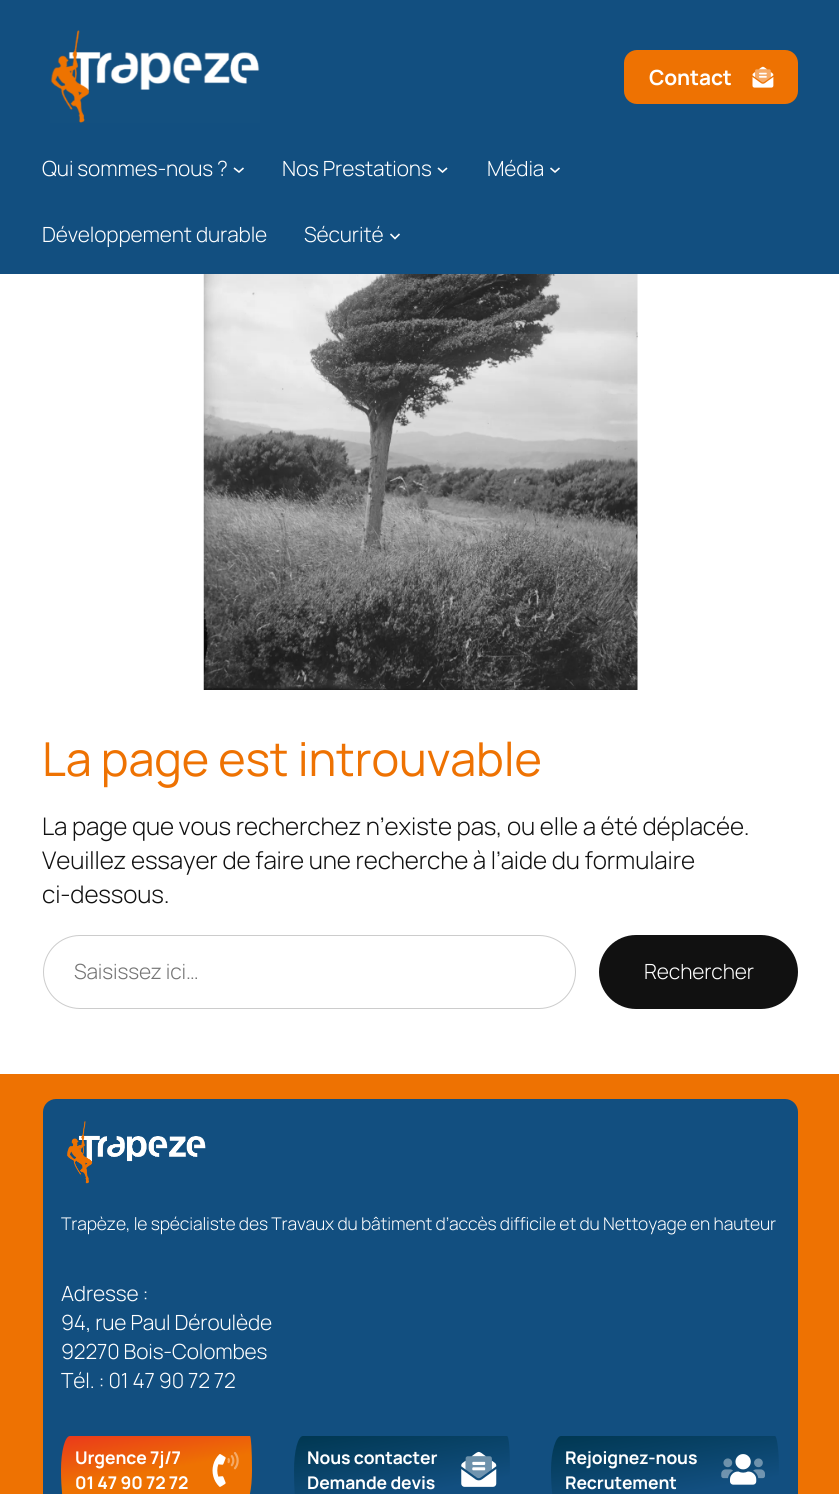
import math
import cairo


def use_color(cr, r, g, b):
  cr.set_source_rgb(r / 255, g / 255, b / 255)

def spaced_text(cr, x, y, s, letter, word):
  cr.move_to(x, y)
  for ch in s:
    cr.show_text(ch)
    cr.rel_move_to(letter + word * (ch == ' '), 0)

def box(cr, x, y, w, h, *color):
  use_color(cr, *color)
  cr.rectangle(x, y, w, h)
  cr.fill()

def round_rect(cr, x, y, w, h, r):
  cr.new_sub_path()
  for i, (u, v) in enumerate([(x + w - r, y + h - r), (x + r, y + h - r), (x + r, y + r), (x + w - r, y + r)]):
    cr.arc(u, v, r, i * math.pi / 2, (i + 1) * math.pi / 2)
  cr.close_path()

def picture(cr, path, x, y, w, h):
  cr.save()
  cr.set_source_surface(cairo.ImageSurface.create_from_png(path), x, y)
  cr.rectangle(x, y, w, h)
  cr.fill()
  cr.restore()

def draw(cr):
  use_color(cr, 255, 255, 255)
  cr.paint()
  box(cr, 0, 0, 839, 274, 18, 79, 128)
  picture(cr, "img_01.png", 50, 30, 210, 93)
  use_color(cr, 238, 114, 2)
  round_rect(cr, 624, 50, 174, 54, 13)
  cr.fill()
  picture(cr, "img_02.png", 752, 66, 22, 22)
  picture(cr, "img_03.png", 755, 69, 16, 14)
  cr.new_path()
  cr.move_to(234, 168)
  cr.line_to(239, 172)
  cr.line_to(243.5, 168)
  use_color(cr, 255, 255, 255)
  cr.set_line_width(1.6)
  cr.stroke()
  cr.new_path()
  cr.move_to(438, 168)
  cr.line_to(442.5, 172)
  cr.line_to(447, 168)
  cr.stroke()
  cr.new_path()
  cr.move_to(550.5, 168)
  cr.line_to(555, 172)
  cr.line_to(559.5, 168)
  cr.stroke()
  cr.new_path()
  cr.move_to(390.5, 234)
  cr.line_to(395, 238.5)
  cr.line_to(399.5, 234)
  cr.stroke()
  picture(cr, "img_04.png", 203, 274, 435, 416)
  round_rect(cr, 43.5, 935.5, 532, 73, 36.5)
  use_color(cr, 204, 204, 204)
  cr.set_line_width(1)
  cr.stroke()
  use_color(cr, 17, 17, 17)
  round_rect(cr, 599, 935, 199, 74, 37)
  cr.fill()
  box(cr, 0, 1074, 839, 420, 238, 114, 2)
  use_color(cr, 18, 79, 128)
  cr.new_path()
  cr.move_to(56, 1102)
  cr.line_to(785, 1102)
  cr.curve_to(790.5, 1102, 795, 1106.5, 795, 1112)
  cr.line_to(795, 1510)
  cr.line_to(46, 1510)
  cr.line_to(46, 1112)
  cr.curve_to(46, 1106.5, 50.5, 1102, 56, 1102)
  cr.close_path()
  cr.fill_preserve()
  cr.set_line_width(6)
  cr.stroke()
  picture(cr, "img_05.png", 67, 1121, 139, 63)
  gradient = cairo.LinearGradient(148, 1421, 166, 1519)
  gradient.add_color_stop_rgba(0, 0.918, 0.227, 0.106, 1)
  gradient.add_color_stop_rgba(0.51, 0.933, 0.447, 0.008, 1)
  gradient.add_color_stop_rgba(1, 0.933, 0.447, 0.008, 1)
  cr.set_source(gradient)
  cr.new_path()
  cr.move_to(70, 1436)
  cr.line_to(250, 1436)
  cr.curve_to(251, 1436, 252, 1451, 252, 1470)
  cr.curve_to(252, 1489, 249, 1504, 244, 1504)
  cr.line_to(64, 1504)
  cr.curve_to(63, 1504, 61, 1489, 61, 1470)
  cr.curve_to(61, 1451, 65, 1436, 70, 1436)
  cr.close_path()
  cr.fill()
  picture(cr, "img_06.png", 212, 1454, 14, 33)
  picture(cr, "img_07.png", 227, 1452, 12, 18)
  gradient = cairo.LinearGradient(393, 1419, 411, 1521)
  gradient.add_color_stop_rgba(0, 0, 0.216, 0.318, 1)
  gradient.add_color_stop_rgba(0.75, 0.071, 0.31, 0.502, 1)
  gradient.add_color_stop_rgba(1, 0.071, 0.31, 0.502, 1)
  cr.set_source(gradient)
  cr.new_path()
  cr.move_to(303, 1436)
  cr.line_to(507, 1436)
  cr.curve_to(509, 1436, 510, 1451, 510, 1470)
  cr.curve_to(510, 1489, 506, 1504, 500, 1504)
  cr.line_to(297, 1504)
  cr.curve_to(295, 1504, 294, 1489, 294, 1470)
  cr.curve_to(294, 1451, 298, 1436, 303, 1436)
  cr.close_path()
  cr.fill()
  picture(cr, "img_08.png", 461, 1451, 36, 36)
  picture(cr, "img_09.png", 465, 1456, 27, 23)
  gradient = cairo.LinearGradient(656, 1418, 674, 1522)
  gradient.add_color_stop_rgba(0, 0, 0.216, 0.318, 1)
  gradient.add_color_stop_rgba(0.75, 0.071, 0.31, 0.502, 1)
  gradient.add_color_stop_rgba(1, 0.071, 0.31, 0.502, 1)
  cr.set_source(gradient)
  cr.new_path()
  cr.move_to(561, 1436)
  cr.line_to(775, 1436)
  cr.curve_to(777, 1436, 779, 1451, 779, 1470)
  cr.curve_to(779, 1489, 774, 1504, 769, 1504)
  cr.line_to(555, 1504)
  cr.curve_to(553, 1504, 551, 1489, 551, 1470)
  cr.curve_to(551, 1451, 556, 1436, 561, 1436)
  cr.close_path()
  cr.fill()
  picture(cr, "img_10.png", 730, 1454, 27, 31)
  picture(cr, "img_11.png", 721, 1458, 44, 21)
  cr.select_font_face("Manrope", cairo.FONT_SLANT_NORMAL, cairo.FONT_WEIGHT_BOLD)
  cr.set_font_size(20.9)
  use_color(cr, 255, 255, 255)
  spaced_text(cr, 649, 85, "Contact", -0.12, 0)
  cr.select_font_face("Manrope Light")
  spaced_text(cr, 42, 176, "Qui sommes-nous ?", -0.12, 0)
  spaced_text(cr, 282, 176, "Nos Prestations", -0.12, 0)
  spaced_text(cr, 487, 176, "Média", -0.12, 0)
  spaced_text(cr, 42, 242, "Développement durable", -0.12, 0)
  spaced_text(cr, 304, 242, "Sécurité", -0.12, 0)
  cr.select_font_face("Manrope")
  cr.set_font_size(46.75)
  use_color(cr, 238, 114, 2)
  spaced_text(cr, 42, 776, "La page est introuvable", -0.12, 0)
  cr.select_font_face("Manrope Light")
  cr.set_font_size(24.25)
  use_color(cr, 17, 17, 17)
  spaced_text(cr, 42, 835, "La page que vous recherchez n’existe pas, ou elle a été déplacée.", -0.12, 0)
  spaced_text(cr, 42, 869, "Veuillez essayer de faire une recherche à l’aide du formulaire", -0.12, 0)
  spaced_text(cr, 42, 903, "ci-dessous.", -0.12, 0)
  cr.set_font_size(20.9)
  use_color(cr, 117, 117, 117)
  spaced_text(cr, 74, 979, "Saisissez ici…", -0.12, 0)
  use_color(cr, 255, 255, 255)
  spaced_text(cr, 644, 979, "Rechercher", -0.12, 0)
  cr.set_font_size(17.5)
  spaced_text(cr, 61, 1230, "Trapèze, le spécialiste des Travaux du bâtiment d’accès difficile et du Nettoyage en hauteur", -0.12, 0)
  cr.set_font_size(20.9)
  spaced_text(cr, 61, 1301, "Adresse :", -0.12, 0)
  spaced_text(cr, 61, 1330, "94, rue Paul Déroulède", -0.12, 0)
  spaced_text(cr, 61, 1359, "92270 Bois-Colombes", -0.12, 0)
  spaced_text(cr, 61, 1388, "Tél. : 01 47 90 72 72", -0.12, 0)
  cr.select_font_face("Manrope", cairo.FONT_SLANT_NORMAL, cairo.FONT_WEIGHT_BOLD)
  cr.set_font_size(17.5)
  spaced_text(cr, 75, 1464, "Urgence 7j/7", -0.12, 0)
  spaced_text(cr, 75, 1489, "01 47 90 72 72", -0.12, 0)
  spaced_text(cr, 307, 1464, "Nous contacter", -0.12, 0)
  spaced_text(cr, 307, 1489, "Demande devis", -0.12, 0)
  spaced_text(cr, 565, 1464, "Rejoignez-nous", -0.12, 0)
  spaced_text(cr, 565, 1489, "Recrutement", -0.12, 0)


surface = cairo.ImageSurface(cairo.FORMAT_RGB24, 839, 1494)
cr = cairo.Context(surface)
options = cairo.FontOptions()
options.set_hint_metrics(cairo.HINT_METRICS_OFF)
options.set_hint_style(cairo.HINT_STYLE_NONE)
cr.set_font_options(options)
cr.set_miter_limit(4)
draw(cr)
surface.write_to_png("out.png")
